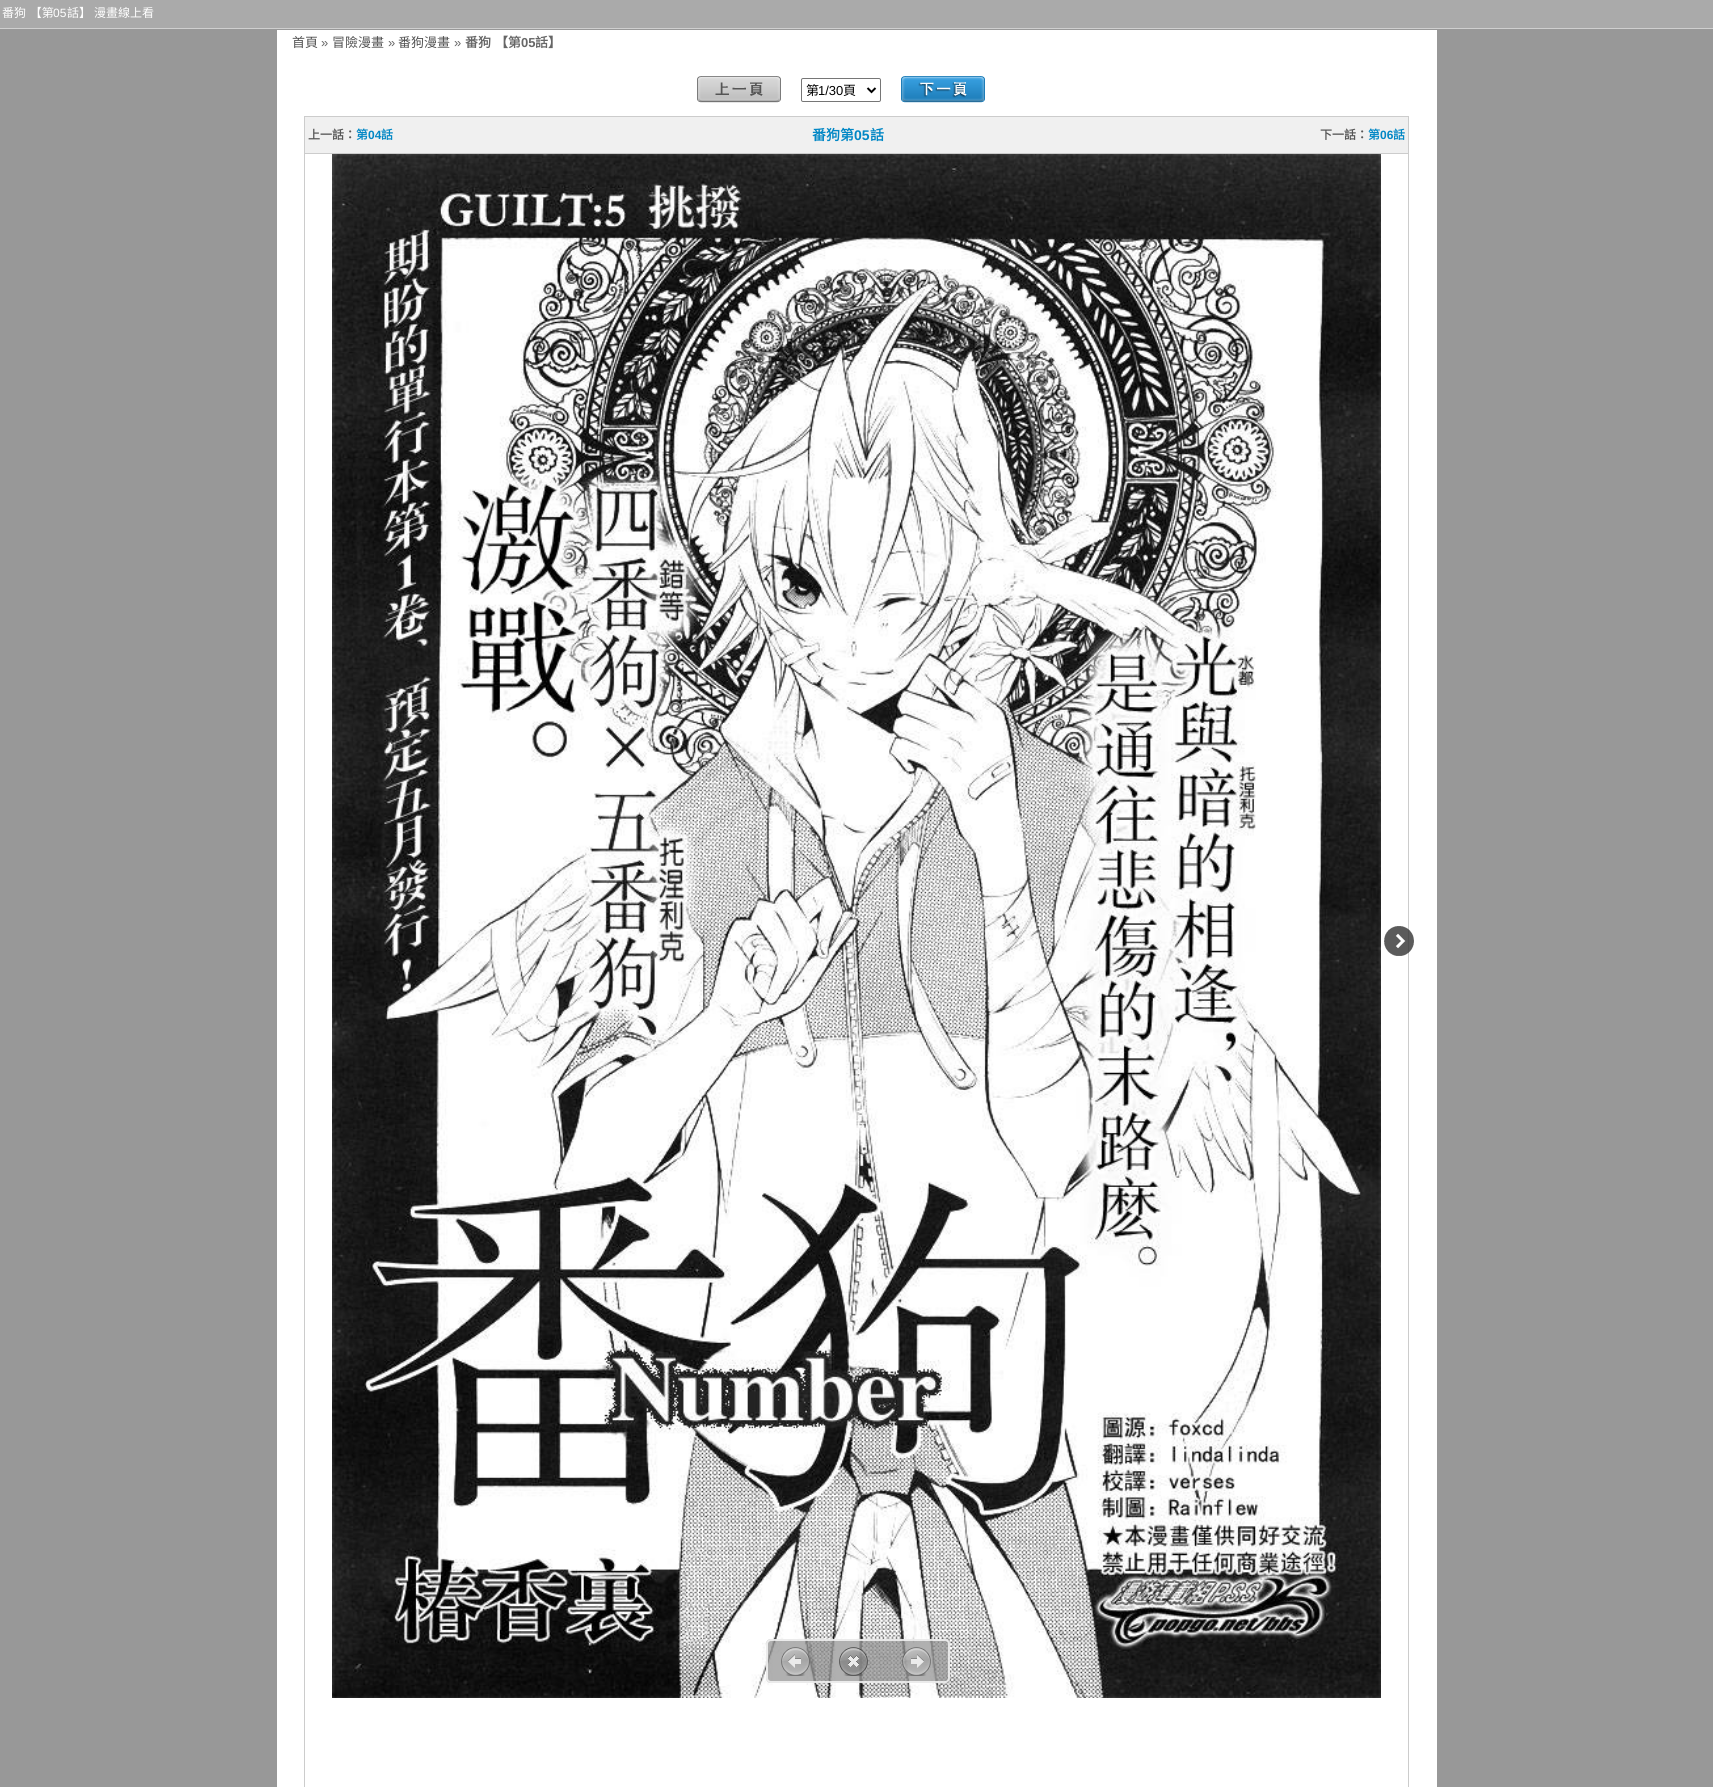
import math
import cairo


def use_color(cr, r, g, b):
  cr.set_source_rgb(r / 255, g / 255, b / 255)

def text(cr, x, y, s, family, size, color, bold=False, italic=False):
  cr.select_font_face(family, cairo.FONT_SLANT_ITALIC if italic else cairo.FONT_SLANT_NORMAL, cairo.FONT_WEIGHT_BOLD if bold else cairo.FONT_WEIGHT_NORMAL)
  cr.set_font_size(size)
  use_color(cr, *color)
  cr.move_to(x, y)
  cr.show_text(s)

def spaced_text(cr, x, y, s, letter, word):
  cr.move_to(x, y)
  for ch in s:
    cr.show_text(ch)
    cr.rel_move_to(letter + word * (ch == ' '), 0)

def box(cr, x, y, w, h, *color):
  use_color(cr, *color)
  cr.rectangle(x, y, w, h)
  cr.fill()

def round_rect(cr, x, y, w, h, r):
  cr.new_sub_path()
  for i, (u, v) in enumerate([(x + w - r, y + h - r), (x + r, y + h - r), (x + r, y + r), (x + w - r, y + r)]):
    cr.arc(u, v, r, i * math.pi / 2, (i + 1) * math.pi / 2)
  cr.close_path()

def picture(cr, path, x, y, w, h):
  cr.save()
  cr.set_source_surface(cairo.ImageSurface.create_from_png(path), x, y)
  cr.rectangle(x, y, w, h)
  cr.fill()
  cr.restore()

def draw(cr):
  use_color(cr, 152, 152, 152)
  cr.paint()
  box(cr, 0, 0, 1713, 28, 170, 170, 170)
  box(cr, 0, 28, 1713, 1, 207, 207, 207)
  box(cr, 277, 30, 1160, 1757, 255, 255, 255)
  picture(cr, "img_01.png", 697, 76, 84, 27)
  round_rect(cr, 801.5, 78.5, 79, 23, 1.5)
  use_color(cr, 118, 118, 118)
  cr.set_line_width(1)
  cr.stroke()
  cr.new_path()
  cr.move_to(867.5, 88)
  cr.line_to(871.5, 92)
  cr.line_to(875.5, 88)
  use_color(cr, 0, 0, 0)
  cr.set_line_width(2)
  cr.stroke()
  picture(cr, "img_02.png", 901, 76, 84, 27)
  box(cr, 304, 116, 1105, 1, 204, 204, 204)
  box(cr, 1408, 116, 1, 1671, 204, 204, 204)
  box(cr, 304, 116, 1, 1671, 204, 204, 204)
  box(cr, 305, 117, 1103, 36, 240, 240, 240)
  box(cr, 304, 153, 1105, 1, 204, 204, 204)
  picture(cr, "img_03.png", 332, 154, 1049, 1544)
  picture(cr, "img_04.png", 1384, 926, 30, 30)
  cr.set_source_rgba(0.588, 0.588, 0.588, 0.75)
  round_rect(cr, 766, 1639, 184, 44, 5)
  cr.fill()
  picture(cr, "img_05.png", 781, 1647, 150, 29)
  round_rect(cr, 767, 1640, 182, 42, 4)
  cr.set_source_rgba(1, 1, 1, 0.75)
  cr.stroke()
  cr.select_font_face("Noto Sans CJK TC")
  cr.set_font_size(12)
  use_color(cr, 255, 255, 255)
  spaced_text(cr, 2, 17, "番狗 【第", 0, 1)
  text(cr, 53, 17, "05", "Liberation Sans", 12, (255, 255, 255))
  text(cr, 67, 17, "話】", "Noto Sans CJK TC", 12, (255, 255, 255))
  text(cr, 94, 17, "漫畫線上看", "Noto Sans CJK TC", 12, (255, 255, 255))
  text(cr, 292, 47, "首頁", "Noto Sans CJK TC", 13, (81, 81, 81))
  text(cr, 321, 47, "»", "Liberation Sans", 13, (102, 102, 102))
  text(cr, 332, 47, "冒險漫畫", "Noto Sans CJK TC", 13, (81, 81, 81))
  text(cr, 388, 47, "»", "Liberation Sans", 13, (102, 102, 102))
  text(cr, 398, 47, "番狗漫畫", "Noto Sans CJK TC", 13, (81, 81, 81))
  text(cr, 454, 47, "»", "Liberation Sans", 13, (102, 102, 102))
  cr.select_font_face("Noto Sans CJK TC", cairo.FONT_SLANT_NORMAL, cairo.FONT_WEIGHT_BOLD)
  spaced_text(cr, 465, 47, "番狗 【第", 0, 1)
  text(cr, 521, 47, "05", "Liberation Sans", 13, (102, 102, 102), bold=True)
  text(cr, 535, 47, "話】", "Noto Sans CJK TC", 13, (102, 102, 102), bold=True)
  text(cr, 806, 95, "第", "Noto Sans CJK TC", 13, (0, 0, 0))
  text(cr, 818, 95, "1/30", "Liberation Sans", 13, (0, 0, 0))
  text(cr, 843, 95, "頁", "Noto Sans CJK TC", 13, (0, 0, 0))
  text(cr, 308, 139, "上一話：", "Noto Sans CJK TC", 12, (87, 87, 87), bold=True)
  text(cr, 356, 139, "第", "Noto Sans CJK TC", 12, (1, 135, 197), bold=True)
  text(cr, 368, 139, "04", "Liberation Sans", 12, (1, 135, 197), bold=True)
  text(cr, 381, 139, "話", "Noto Sans CJK TC", 12, (1, 135, 197), bold=True)
  text(cr, 812, 140, "番狗第", "Noto Sans CJK TC", 14, (1, 135, 197), bold=True)
  text(cr, 854, 140, "05", "Liberation Sans", 14, (1, 135, 197), bold=True)
  text(cr, 870, 140, "話", "Noto Sans CJK TC", 14, (1, 135, 197), bold=True)
  text(cr, 1320, 139, "下一話：", "Noto Sans CJK TC", 12, (87, 87, 87), bold=True)
  text(cr, 1368, 139, "第", "Noto Sans CJK TC", 12, (1, 135, 197), bold=True)
  text(cr, 1380, 139, "06", "Liberation Sans", 12, (1, 135, 197), bold=True)
  text(cr, 1393, 139, "話", "Noto Sans CJK TC", 12, (1, 135, 197), bold=True)


surface = cairo.ImageSurface(cairo.FORMAT_RGB24, 1713, 1787)
cr = cairo.Context(surface)
options = cairo.FontOptions()
options.set_hint_metrics(cairo.HINT_METRICS_OFF)
options.set_hint_style(cairo.HINT_STYLE_NONE)
cr.set_font_options(options)
cr.set_miter_limit(4)
draw(cr)
surface.write_to_png("out.png")
